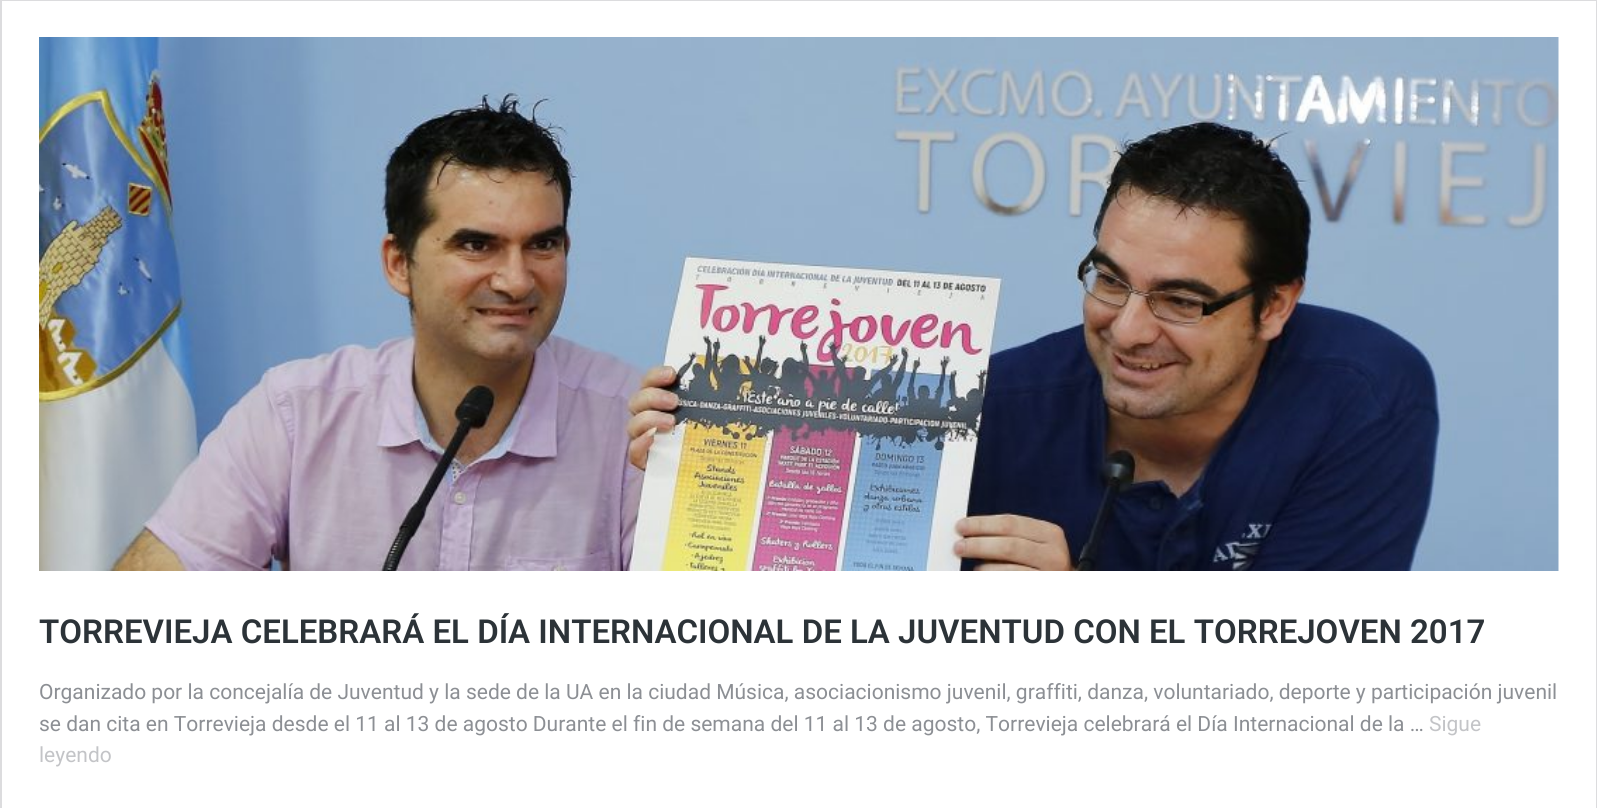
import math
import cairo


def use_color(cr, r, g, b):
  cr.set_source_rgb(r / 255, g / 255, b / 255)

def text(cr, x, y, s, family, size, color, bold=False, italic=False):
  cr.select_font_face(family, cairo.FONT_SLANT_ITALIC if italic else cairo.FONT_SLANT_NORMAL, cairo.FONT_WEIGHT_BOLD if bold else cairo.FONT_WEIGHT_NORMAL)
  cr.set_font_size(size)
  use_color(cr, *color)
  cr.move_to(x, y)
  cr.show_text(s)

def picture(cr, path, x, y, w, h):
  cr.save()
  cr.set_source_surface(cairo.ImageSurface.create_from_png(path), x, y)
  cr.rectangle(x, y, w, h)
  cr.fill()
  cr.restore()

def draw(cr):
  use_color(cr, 255, 255, 255)
  cr.paint()
  cr.rectangle(1, 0, 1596, 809)
  use_color(cr, 220, 220, 222)
  cr.stroke()
  picture(cr, "img_01.png", 39, 37, 1520, 534)
  text(cr, 39, 643, "TORREVIEJA CELEBRARÁ EL DÍA INTERNACIONAL DE LA JUVENTUD CON EL TORREJOVEN 2017", "Roboto SemiBold", 33, (44, 51, 56))
  text(cr, 39, 699, "Organizado por la concejalía de Juventud y la sede de la UA en la ciudad Música, asociacionismo juvenil, graffiti, danza, voluntariado, deporte y participación juvenil", "Roboto", 21, (140, 143, 148))
  text(cr, 39, 731, "se dan cita en Torrevieja desde el 11 al 13 de agosto Durante el fin de semana del 11 al 13 de agosto, Torrevieja celebrará el Día Internacional de la …", "Roboto", 21, (140, 143, 148))
  text(cr, 1429, 731, "Sigue", "Roboto", 21, (195, 196, 199))
  text(cr, 39, 762, "leyendo", "Roboto", 21, (195, 196, 199))


surface = cairo.ImageSurface(cairo.FORMAT_RGB24, 1597, 808)
cr = cairo.Context(surface)
options = cairo.FontOptions()
options.set_hint_metrics(cairo.HINT_METRICS_OFF)
options.set_hint_style(cairo.HINT_STYLE_NONE)
cr.set_font_options(options)
cr.set_miter_limit(4)
draw(cr)
surface.write_to_png("out.png")
